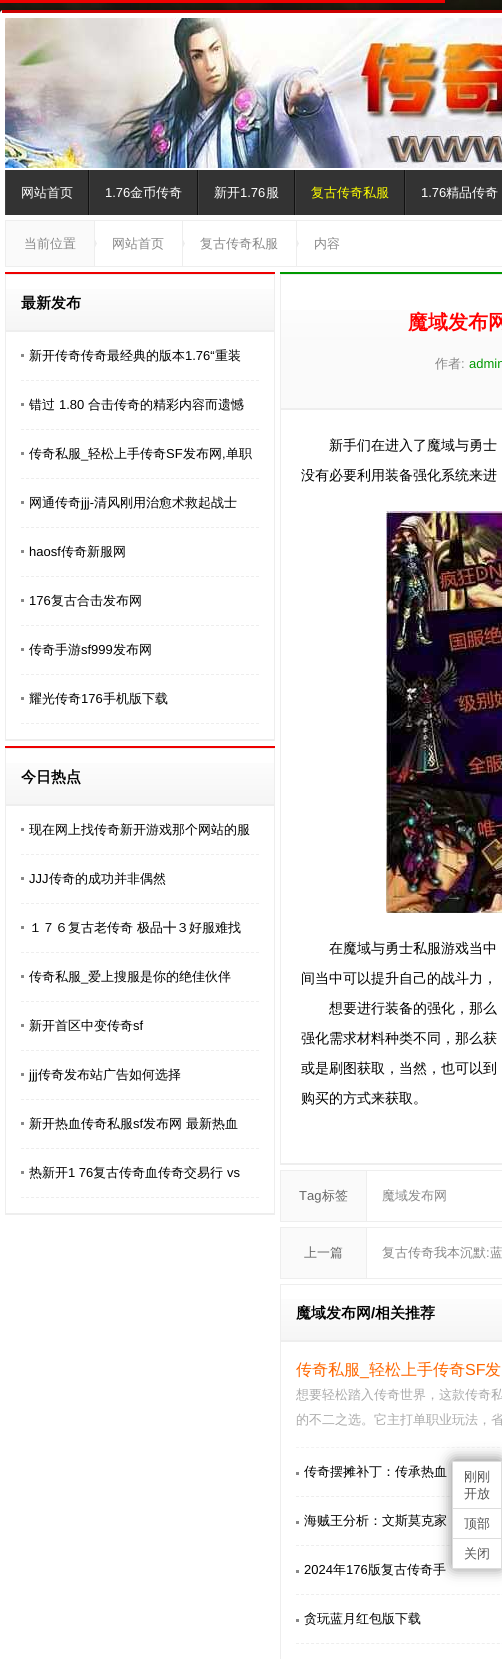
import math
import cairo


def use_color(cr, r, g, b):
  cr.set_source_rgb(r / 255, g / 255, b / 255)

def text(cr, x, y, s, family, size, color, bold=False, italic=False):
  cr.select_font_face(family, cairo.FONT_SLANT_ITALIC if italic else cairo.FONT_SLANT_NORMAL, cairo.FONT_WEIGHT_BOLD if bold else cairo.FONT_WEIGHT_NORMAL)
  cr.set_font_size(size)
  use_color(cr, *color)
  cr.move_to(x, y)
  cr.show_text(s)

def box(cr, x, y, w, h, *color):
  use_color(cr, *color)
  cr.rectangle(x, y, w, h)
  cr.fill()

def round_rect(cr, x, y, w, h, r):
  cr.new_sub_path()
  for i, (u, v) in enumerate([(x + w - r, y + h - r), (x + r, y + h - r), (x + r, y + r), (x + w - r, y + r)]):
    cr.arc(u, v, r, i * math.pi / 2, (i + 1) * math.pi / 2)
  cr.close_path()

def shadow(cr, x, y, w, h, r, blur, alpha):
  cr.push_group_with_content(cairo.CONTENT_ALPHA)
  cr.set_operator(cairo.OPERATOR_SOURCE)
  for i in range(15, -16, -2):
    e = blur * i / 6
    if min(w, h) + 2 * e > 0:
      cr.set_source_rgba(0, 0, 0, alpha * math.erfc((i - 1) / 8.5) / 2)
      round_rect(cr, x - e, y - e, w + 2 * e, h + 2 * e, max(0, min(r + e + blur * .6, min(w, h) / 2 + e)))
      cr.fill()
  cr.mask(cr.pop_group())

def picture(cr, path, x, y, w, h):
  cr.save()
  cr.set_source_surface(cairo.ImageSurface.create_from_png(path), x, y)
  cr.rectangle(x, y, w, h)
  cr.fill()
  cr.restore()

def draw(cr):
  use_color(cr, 255, 255, 255)
  cr.paint()
  picture(cr, "img_01.png", 0, 0, 502, 13)
  use_color(cr, 0, 0, 0)
  shadow(cr, 0, 9, 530, 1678, 5, 7.5, 0.5)
  use_color(cr, 255, 255, 255)
  cr.new_path()
  cr.move_to(3, 10)
  cr.line_to(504, 10)
  cr.curve_to(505.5, 10, 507, 11.5, 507, 13)
  cr.line_to(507, 1659)
  cr.curve_to(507, 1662, 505, 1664, 502, 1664)
  cr.line_to(5, 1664)
  cr.curve_to(2, 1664, 0, 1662, 0, 1659)
  cr.line_to(0, 13)
  cr.curve_to(0, 11.5, 1.5, 10, 3, 10)
  cr.close_path()
  cr.fill()
  box(cr, 2, 10, 500, 3, 204, 0, 0)
  box(cr, 0, 0, 445, 3, 238, 0, 0)
  picture(cr, "img_02.png", 5, 18, 497, 150)
  box(cr, 6, 170, 496, 45, 51, 51, 51)
  box(cr, 88, 170, 1, 45, 17, 17, 17)
  box(cr, 5, 170, 1, 45, 64, 64, 64)
  box(cr, 197, 170, 1, 45, 17, 17, 17)
  box(cr, 89, 170, 1, 45, 64, 64, 64)
  box(cr, 294, 170, 1, 45, 17, 17, 17)
  box(cr, 198, 170, 1, 45, 64, 64, 64)
  box(cr, 404, 170, 1, 45, 17, 17, 17)
  box(cr, 295, 170, 1, 45, 64, 64, 64)
  box(cr, 405, 170, 1, 45, 64, 64, 64)
  cr.rectangle(5.5, 220.5, 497, 46)
  use_color(cr, 238, 238, 238)
  cr.set_line_width(1)
  cr.stroke()
  box(cr, 6, 221, 88, 45, 250, 250, 250)
  picture(cr, "img_03.png", 94, 221, 3, 45)
  picture(cr, "img_03.png", 182, 221, 3, 45)
  picture(cr, "img_03.png", 296, 221, 3, 45)
  box(cr, 5, 272, 270, 2, 238, 0, 0)
  gradient = cairo.LinearGradient(140, 275, 140, 330)
  gradient.add_color_stop_rgba(0, 1, 1, 1, 1)
  gradient.add_color_stop_rgba(1, 0.961, 0.961, 0.961, 1)
  cr.set_source(gradient)
  cr.rectangle(6, 289, 268, 41)
  cr.fill()
  cr.rectangle(5.5, 274.5, 269, 56)
  use_color(cr, 238, 238, 238)
  cr.stroke()
  box(cr, 5, 331, 270, 1, 238, 238, 238)
  box(cr, 274, 331, 1, 410, 238, 238, 238)
  box(cr, 5, 739, 270, 2, 238, 238, 238)
  box(cr, 5, 331, 1, 410, 238, 238, 238)
  box(cr, 21, 354, 3, 3, 136, 136, 136)
  cr.new_path()
  cr.move_to(21, 380.5)
  cr.line_to(259, 380.5)
  use_color(cr, 238, 238, 238)
  cr.set_dash([3, 2])
  cr.stroke()
  box(cr, 21, 403, 3, 3, 136, 136, 136)
  cr.new_path()
  cr.move_to(21, 429.5)
  cr.line_to(259, 429.5)
  use_color(cr, 238, 238, 238)
  cr.stroke()
  box(cr, 21, 452, 3, 3, 136, 136, 136)
  cr.new_path()
  cr.move_to(21, 478.5)
  cr.line_to(259, 478.5)
  use_color(cr, 238, 238, 238)
  cr.stroke()
  box(cr, 21, 501, 3, 3, 136, 136, 136)
  cr.new_path()
  cr.move_to(21, 527.5)
  cr.line_to(259, 527.5)
  use_color(cr, 238, 238, 238)
  cr.stroke()
  box(cr, 21, 550, 3, 3, 136, 136, 136)
  cr.new_path()
  cr.move_to(21, 576.5)
  cr.line_to(259, 576.5)
  use_color(cr, 238, 238, 238)
  cr.stroke()
  box(cr, 21, 599, 3, 3, 136, 136, 136)
  cr.new_path()
  cr.move_to(21, 625.5)
  cr.line_to(259, 625.5)
  use_color(cr, 238, 238, 238)
  cr.stroke()
  box(cr, 21, 648, 3, 3, 136, 136, 136)
  cr.new_path()
  cr.move_to(21, 674.5)
  cr.line_to(259, 674.5)
  use_color(cr, 238, 238, 238)
  cr.stroke()
  box(cr, 21, 697, 3, 3, 136, 136, 136)
  cr.new_path()
  cr.move_to(21, 723.5)
  cr.line_to(259, 723.5)
  use_color(cr, 238, 238, 238)
  cr.stroke()
  box(cr, 5, 746, 270, 2, 238, 0, 0)
  gradient = cairo.LinearGradient(140, 749, 140, 804)
  gradient.add_color_stop_rgba(0, 1, 1, 1, 1)
  gradient.add_color_stop_rgba(1, 0.961, 0.961, 0.961, 1)
  cr.set_source(gradient)
  cr.rectangle(6, 763, 268, 41)
  cr.fill()
  cr.rectangle(5.5, 748.5, 269, 56)
  use_color(cr, 238, 238, 238)
  cr.set_dash([])
  cr.stroke()
  box(cr, 5, 805, 270, 1, 238, 238, 238)
  box(cr, 274, 805, 1, 410, 238, 238, 238)
  box(cr, 5, 1213, 270, 2, 238, 238, 238)
  box(cr, 5, 805, 1, 410, 238, 238, 238)
  box(cr, 21, 828, 3, 3, 136, 136, 136)
  cr.new_path()
  cr.move_to(21, 854.5)
  cr.line_to(259, 854.5)
  use_color(cr, 238, 238, 238)
  cr.set_dash([3, 2])
  cr.stroke()
  box(cr, 21, 877, 3, 3, 136, 136, 136)
  cr.new_path()
  cr.move_to(21, 903.5)
  cr.line_to(259, 903.5)
  use_color(cr, 238, 238, 238)
  cr.stroke()
  box(cr, 21, 926, 3, 3, 136, 136, 136)
  cr.new_path()
  cr.move_to(21, 952.5)
  cr.line_to(259, 952.5)
  use_color(cr, 238, 238, 238)
  cr.stroke()
  box(cr, 21, 975, 3, 3, 136, 136, 136)
  cr.new_path()
  cr.move_to(21, 1001.5)
  cr.line_to(259, 1001.5)
  use_color(cr, 238, 238, 238)
  cr.stroke()
  box(cr, 21, 1024, 3, 3, 136, 136, 136)
  cr.new_path()
  cr.move_to(21, 1050.5)
  cr.line_to(259, 1050.5)
  use_color(cr, 238, 238, 238)
  cr.stroke()
  box(cr, 21, 1073, 3, 3, 136, 136, 136)
  cr.new_path()
  cr.move_to(21, 1099.5)
  cr.line_to(259, 1099.5)
  use_color(cr, 238, 238, 238)
  cr.stroke()
  box(cr, 21, 1122, 3, 3, 136, 136, 136)
  cr.new_path()
  cr.move_to(21, 1148.5)
  cr.line_to(259, 1148.5)
  use_color(cr, 238, 238, 238)
  cr.stroke()
  box(cr, 21, 1171, 3, 3, 136, 136, 136)
  cr.new_path()
  cr.move_to(21, 1197.5)
  cr.line_to(259, 1197.5)
  use_color(cr, 238, 238, 238)
  cr.stroke()
  box(cr, 280, 272, 222, 2, 0, 153, 0)
  gradient = cairo.LinearGradient(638, 275, 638, 345)
  gradient.add_color_stop_rgba(0, 1, 1, 1, 1)
  gradient.add_color_stop_rgba(1, 0.98, 0.98, 0.98, 1)
  cr.set_source(gradient)
  cr.rectangle(281, 310, 221, 35)
  cr.fill()
  box(cr, 280, 274, 222, 1, 238, 238, 238)
  box(cr, 280, 274, 1, 71, 238, 238, 238)
  box(cr, 281, 345, 221, 63, 250, 250, 250)
  box(cr, 280, 408, 222, 2, 238, 238, 238)
  box(cr, 280, 1163, 222, 2, 238, 238, 238)
  box(cr, 280, 345, 1, 820, 238, 238, 238)
  picture(cr, "img_04.png", 386, 511, 116, 402)
  cr.rectangle(280.5, 1170.5, 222, 51)
  cr.set_dash([])
  cr.stroke()
  box(cr, 281, 1171, 85, 50, 250, 250, 250)
  box(cr, 366, 1171, 1, 50, 238, 238, 238)
  cr.rectangle(280.5, 1227.5, 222, 51)
  cr.stroke()
  box(cr, 281, 1228, 85, 50, 250, 250, 250)
  box(cr, 366, 1228, 1, 50, 238, 238, 238)
  cr.rectangle(280.5, 1284.5, 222, 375)
  cr.stroke()
  gradient = cairo.LinearGradient(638, 1285, 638, 1340)
  gradient.add_color_stop_rgba(0, 1, 1, 1, 1)
  gradient.add_color_stop_rgba(1, 0.961, 0.961, 0.961, 1)
  cr.set_source(gradient)
  cr.rectangle(281, 1299, 221, 41)
  cr.fill()
  box(cr, 281, 1340, 221, 2, 238, 238, 238)
  cr.new_path()
  cr.move_to(296, 1447.5)
  cr.line_to(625, 1447.5)
  use_color(cr, 243, 243, 243)
  cr.set_dash([3, 2.02])
  cr.stroke()
  cr.new_path()
  cr.move_to(296, 1496.5)
  cr.line_to(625, 1496.5)
  use_color(cr, 238, 238, 238)
  cr.stroke()
  box(cr, 296, 1472, 3, 3, 136, 136, 136)
  cr.new_path()
  cr.move_to(296, 1545.5)
  cr.line_to(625, 1545.5)
  use_color(cr, 238, 238, 238)
  cr.stroke()
  box(cr, 296, 1521, 3, 3, 136, 136, 136)
  cr.new_path()
  cr.move_to(296, 1594.5)
  cr.line_to(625, 1594.5)
  use_color(cr, 238, 238, 238)
  cr.stroke()
  box(cr, 296, 1570, 3, 3, 136, 136, 136)
  cr.new_path()
  cr.move_to(296, 1643.5)
  cr.line_to(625, 1643.5)
  use_color(cr, 238, 238, 238)
  cr.stroke()
  box(cr, 296, 1619, 3, 3, 136, 136, 136)
  use_color(cr, 0, 0, 0)
  shadow(cr, 452, 1460, 50, 108, 2, 7.5, 0.5)
  use_color(cr, 255, 255, 255)
  cr.new_path()
  cr.move_to(454, 1461)
  cr.line_to(502, 1461)
  cr.line_to(502, 1569)
  cr.line_to(454, 1569)
  cr.curve_to(453, 1569, 452, 1568, 452, 1567)
  cr.line_to(452, 1463)
  cr.curve_to(452, 1462, 453, 1461, 454, 1461)
  cr.close_path()
  cr.fill()
  box(cr, 501, 1461, 1, 108, 221, 221, 221)
  box(cr, 453, 1568, 49, 1, 221, 221, 221)
  box(cr, 452, 1462, 1, 106, 221, 221, 221)
  box(cr, 453, 1461, 48, 1, 221, 221, 221)
  box(cr, 453, 1508, 48, 1, 221, 221, 221)
  box(cr, 453, 1538, 48, 1, 221, 221, 221)
  text(cr, 21, 197, "网站首页", "WenQuanYi Zen Hei Medium", 13, (255, 255, 255))
  text(cr, 105, 197, "1.76", "Liberation Sans", 13, (255, 255, 255))
  text(cr, 130, 197, "金币传奇", "WenQuanYi Zen Hei Medium", 13, (255, 255, 255))
  text(cr, 214, 197, "新开", "WenQuanYi Zen Hei Medium", 13, (255, 255, 255))
  text(cr, 240, 197, "1.76", "Liberation Sans", 13, (255, 255, 255))
  text(cr, 266, 197, "服", "WenQuanYi Zen Hei Medium", 13, (255, 255, 255))
  text(cr, 311, 197, "复古传奇私服", "WenQuanYi Zen Hei Medium", 13, (255, 255, 0))
  text(cr, 421, 197, "1.76", "Liberation Sans", 13, (255, 255, 255))
  text(cr, 446, 197, "精品传奇", "WenQuanYi Zen Hei Medium", 13, (255, 255, 255))
  text(cr, 24, 248, "当前位置", "WenQuanYi Zen Hei Medium", 13, (136, 136, 136))
  text(cr, 112, 248, "网站首页", "WenQuanYi Zen Hei Medium", 13, (136, 136, 136))
  text(cr, 200, 248, "复古传奇私服", "WenQuanYi Zen Hei Medium", 13, (136, 136, 136))
  text(cr, 314, 248, "内容", "WenQuanYi Zen Hei Medium", 13, (136, 136, 136))
  text(cr, 21, 308, "最新发布", "WenQuanYi Zen Hei", 15, (0, 0, 0), bold=True)
  text(cr, 29, 360, "新开传奇传奇最经典的版本", "WenQuanYi Zen Hei Medium", 13, (0, 0, 0))
  text(cr, 185, 360, "1.76“", "Liberation Sans", 13, (0, 0, 0))
  text(cr, 215, 360, "重装", "WenQuanYi Zen Hei Medium", 13, (0, 0, 0))
  text(cr, 29, 409, "错过", "WenQuanYi Zen Hei Medium", 13, (0, 0, 0))
  text(cr, 59, 409, "1.80", "Liberation Sans", 13, (0, 0, 0))
  text(cr, 88, 409, "合击传奇的精彩内容而遗憾", "WenQuanYi Zen Hei Medium", 13, (0, 0, 0))
  text(cr, 29, 458, "传奇私服", "WenQuanYi Zen Hei Medium", 13, (0, 0, 0))
  text(cr, 166, 458, "SF", "Liberation Sans", 13, (0, 0, 0))
  text(cr, 183, 458, "发布网 单职", "WenQuanYi Zen Hei Medium", 13, (0, 0, 0))
  text(cr, 81, 458, "_", "Liberation Sans", 13, (0, 0, 0))
  text(cr, 88, 458, "轻松上手传奇", "WenQuanYi Zen Hei Medium", 13, (0, 0, 0))
  text(cr, 222, 458, ",", "Liberation Sans", 13, (0, 0, 0))
  text(cr, 29, 507, "网通传奇", "WenQuanYi Zen Hei Medium", 13, (0, 0, 0))
  text(cr, 81, 507, "jjj-", "Liberation Sans", 13, (0, 0, 0))
  text(cr, 94, 507, "清风刚用治愈术救起战士", "WenQuanYi Zen Hei Medium", 13, (0, 0, 0))
  text(cr, 29, 556, "haosf", "Liberation Sans", 13, (0, 0, 0))
  text(cr, 61, 556, "传奇新服网", "WenQuanYi Zen Hei Medium", 13, (0, 0, 0))
  text(cr, 29, 605, "176", "Liberation Sans", 13, (0, 0, 0))
  text(cr, 51, 605, "复古合击发布网", "WenQuanYi Zen Hei Medium", 13, (0, 0, 0))
  text(cr, 29, 654, "传奇手游", "WenQuanYi Zen Hei Medium", 13, (0, 0, 0))
  text(cr, 81, 654, "sf999", "Liberation Sans", 13, (0, 0, 0))
  text(cr, 113, 654, "发布网", "WenQuanYi Zen Hei Medium", 13, (0, 0, 0))
  text(cr, 29, 703, "耀光传奇", "WenQuanYi Zen Hei Medium", 13, (0, 0, 0))
  text(cr, 81, 703, "176", "Liberation Sans", 13, (0, 0, 0))
  text(cr, 103, 703, "手机版下载", "WenQuanYi Zen Hei Medium", 13, (0, 0, 0))
  text(cr, 21, 782, "今日热点", "WenQuanYi Zen Hei", 15, (0, 0, 0), bold=True)
  text(cr, 29, 834, "现在网上找传奇新开游戏那个网站的服", "WenQuanYi Zen Hei Medium", 13, (0, 0, 0))
  text(cr, 29, 883, "JJJ", "Liberation Sans", 13, (0, 0, 0))
  text(cr, 49, 883, "传奇的成功并非偶然", "WenQuanYi Zen Hei Medium", 13, (0, 0, 0))
  text(cr, 29, 932, "１７６复古老传奇 极品╋３好服难找", "WenQuanYi Zen Hei Medium", 13, (0, 0, 0))
  text(cr, 29, 981, "传奇私服", "WenQuanYi Zen Hei Medium", 13, (0, 0, 0))
  text(cr, 81, 981, "_", "Liberation Sans", 13, (0, 0, 0))
  text(cr, 88, 981, "爱上搜服是你的绝佳伙伴", "WenQuanYi Zen Hei Medium", 13, (0, 0, 0))
  text(cr, 29, 1030, "新开首区中变传奇", "WenQuanYi Zen Hei Medium", 13, (0, 0, 0))
  text(cr, 133, 1030, "sf", "Liberation Sans", 13, (0, 0, 0))
  text(cr, 29, 1079, "jjj", "Liberation Sans", 13, (0, 0, 0))
  text(cr, 38, 1079, "传奇发布站广告如何选择", "WenQuanYi Zen Hei Medium", 13, (0, 0, 0))
  text(cr, 29, 1128, "新开热血传奇私服", "WenQuanYi Zen Hei Medium", 13, (0, 0, 0))
  text(cr, 133, 1128, "sf", "Liberation Sans", 13, (0, 0, 0))
  text(cr, 143, 1128, "发布网 最新热血", "WenQuanYi Zen Hei Medium", 13, (0, 0, 0))
  text(cr, 29, 1177, "热新开", "WenQuanYi Zen Hei Medium", 13, (0, 0, 0))
  text(cr, 68, 1177, "1 76", "Liberation Sans", 13, (0, 0, 0))
  text(cr, 93, 1177, "复古传奇血传奇交易行", "WenQuanYi Zen Hei Medium", 13, (0, 0, 0))
  text(cr, 227, 1177, "vs", "Liberation Sans", 13, (0, 0, 0))
  text(cr, 408, 329, "魔域发布网", "WenQuanYi Zen Hei", 20, (255, 0, 0), bold=True)
  text(cr, 435, 368, "作者", "WenQuanYi Zen Hei Medium", 13, (136, 136, 136))
  text(cr, 461, 368, ":", "Liberation Sans", 13, (136, 136, 136))
  text(cr, 469, 368, "admin", "Liberation Sans", 13, (0, 153, 0))
  text(cr, 329, 450, "新手们在进入了魔域与勇士", "WenQuanYi Zen Hei Medium", 14, (0, 0, 0))
  text(cr, 301, 480, "没有必要利用装备强化系统来进", "WenQuanYi Zen Hei Medium", 14, (0, 0, 0))
  text(cr, 329, 953, "在魔域与勇士私服游戏当中", "WenQuanYi Zen Hei Medium", 14, (0, 0, 0))
  text(cr, 301, 983, "间当中可以提升自己的战斗力，", "WenQuanYi Zen Hei Medium", 14, (0, 0, 0))
  text(cr, 329, 1013, "想要进行装备的强化，那么", "WenQuanYi Zen Hei Medium", 14, (0, 0, 0))
  text(cr, 301, 1043, "强化需求材料种类不同，那么获", "WenQuanYi Zen Hei Medium", 14, (0, 0, 0))
  text(cr, 301, 1073, "或是刷图获取，当然，也可以到", "WenQuanYi Zen Hei Medium", 14, (0, 0, 0))
  text(cr, 301, 1103, "购买的方式来获取。", "WenQuanYi Zen Hei Medium", 14, (0, 0, 0))
  text(cr, 299, 1200, "Tag", "Liberation Sans", 13, (102, 102, 102))
  text(cr, 322, 1200, "标签", "WenQuanYi Zen Hei Medium", 13, (102, 102, 102))
  text(cr, 382, 1200, "魔域发布网", "WenQuanYi Zen Hei Medium", 13, (136, 136, 136))
  text(cr, 304, 1257, "上一篇", "WenQuanYi Zen Hei Medium", 13, (102, 102, 102))
  text(cr, 382, 1257, "复古传奇我本沉默 蓝", "WenQuanYi Zen Hei Medium", 13, (136, 136, 136))
  text(cr, 486, 1257, ":", "Liberation Sans", 13, (136, 136, 136))
  text(cr, 296, 1318, "魔域发布网", "WenQuanYi Zen Hei", 15, (0, 0, 0), bold=True)
  text(cr, 371, 1318, "/", "Liberation Sans", 15, (0, 0, 0), bold=True)
  text(cr, 375, 1318, "相关推荐", "WenQuanYi Zen Hei", 15, (0, 0, 0), bold=True)
  text(cr, 296, 1375, "传奇私服", "WenQuanYi Zen Hei Medium", 16, (255, 102, 0))
  text(cr, 465, 1375, "SF", "Liberation Sans", 16, (255, 102, 0))
  text(cr, 485, 1375, "发", "WenQuanYi Zen Hei Medium", 16, (255, 102, 0))
  text(cr, 360, 1375, "_", "Liberation Sans", 16, (255, 102, 0))
  text(cr, 369, 1375, "轻松上手传奇", "WenQuanYi Zen Hei Medium", 16, (255, 102, 0))
  text(cr, 296, 1399, "想要轻松踏入传奇世界，这款传奇私", "WenQuanYi Zen Hei Medium", 13, (170, 170, 170))
  text(cr, 296, 1424, "的不二之选。它主打单职业玩法，省", "WenQuanYi Zen Hei Medium", 13, (170, 170, 170))
  text(cr, 304, 1476, "传奇摆摊补丁：传承热血", "WenQuanYi Zen Hei Medium", 13, (0, 0, 0))
  text(cr, 304, 1525, "海贼王分析：文斯莫克家", "WenQuanYi Zen Hei Medium", 13, (0, 0, 0))
  text(cr, 304, 1574, "2024", "Liberation Sans", 13, (0, 0, 0))
  text(cr, 333, 1574, "年", "WenQuanYi Zen Hei Medium", 13, (0, 0, 0))
  text(cr, 346, 1574, "176", "Liberation Sans", 13, (0, 0, 0))
  text(cr, 368, 1574, "版复古传奇手", "WenQuanYi Zen Hei Medium", 13, (0, 0, 0))
  text(cr, 304, 1623, "贪玩蓝月红包版下载", "WenQuanYi Zen Hei Medium", 13, (0, 0, 0))
  text(cr, 464, 1481, "刚刚", "WenQuanYi Zen Hei Medium", 13, (85, 85, 85))
  text(cr, 464, 1498, "开放", "WenQuanYi Zen Hei Medium", 13, (85, 85, 85))
  text(cr, 464, 1528, "顶部", "WenQuanYi Zen Hei Medium", 13, (85, 85, 85))
  text(cr, 464, 1558, "关闭", "WenQuanYi Zen Hei Medium", 13, (85, 85, 85))


surface = cairo.ImageSurface(cairo.FORMAT_RGB24, 502, 1659)
cr = cairo.Context(surface)
options = cairo.FontOptions()
options.set_hint_metrics(cairo.HINT_METRICS_OFF)
options.set_hint_style(cairo.HINT_STYLE_NONE)
cr.set_font_options(options)
cr.set_miter_limit(4)
draw(cr)
surface.write_to_png("out.png")
